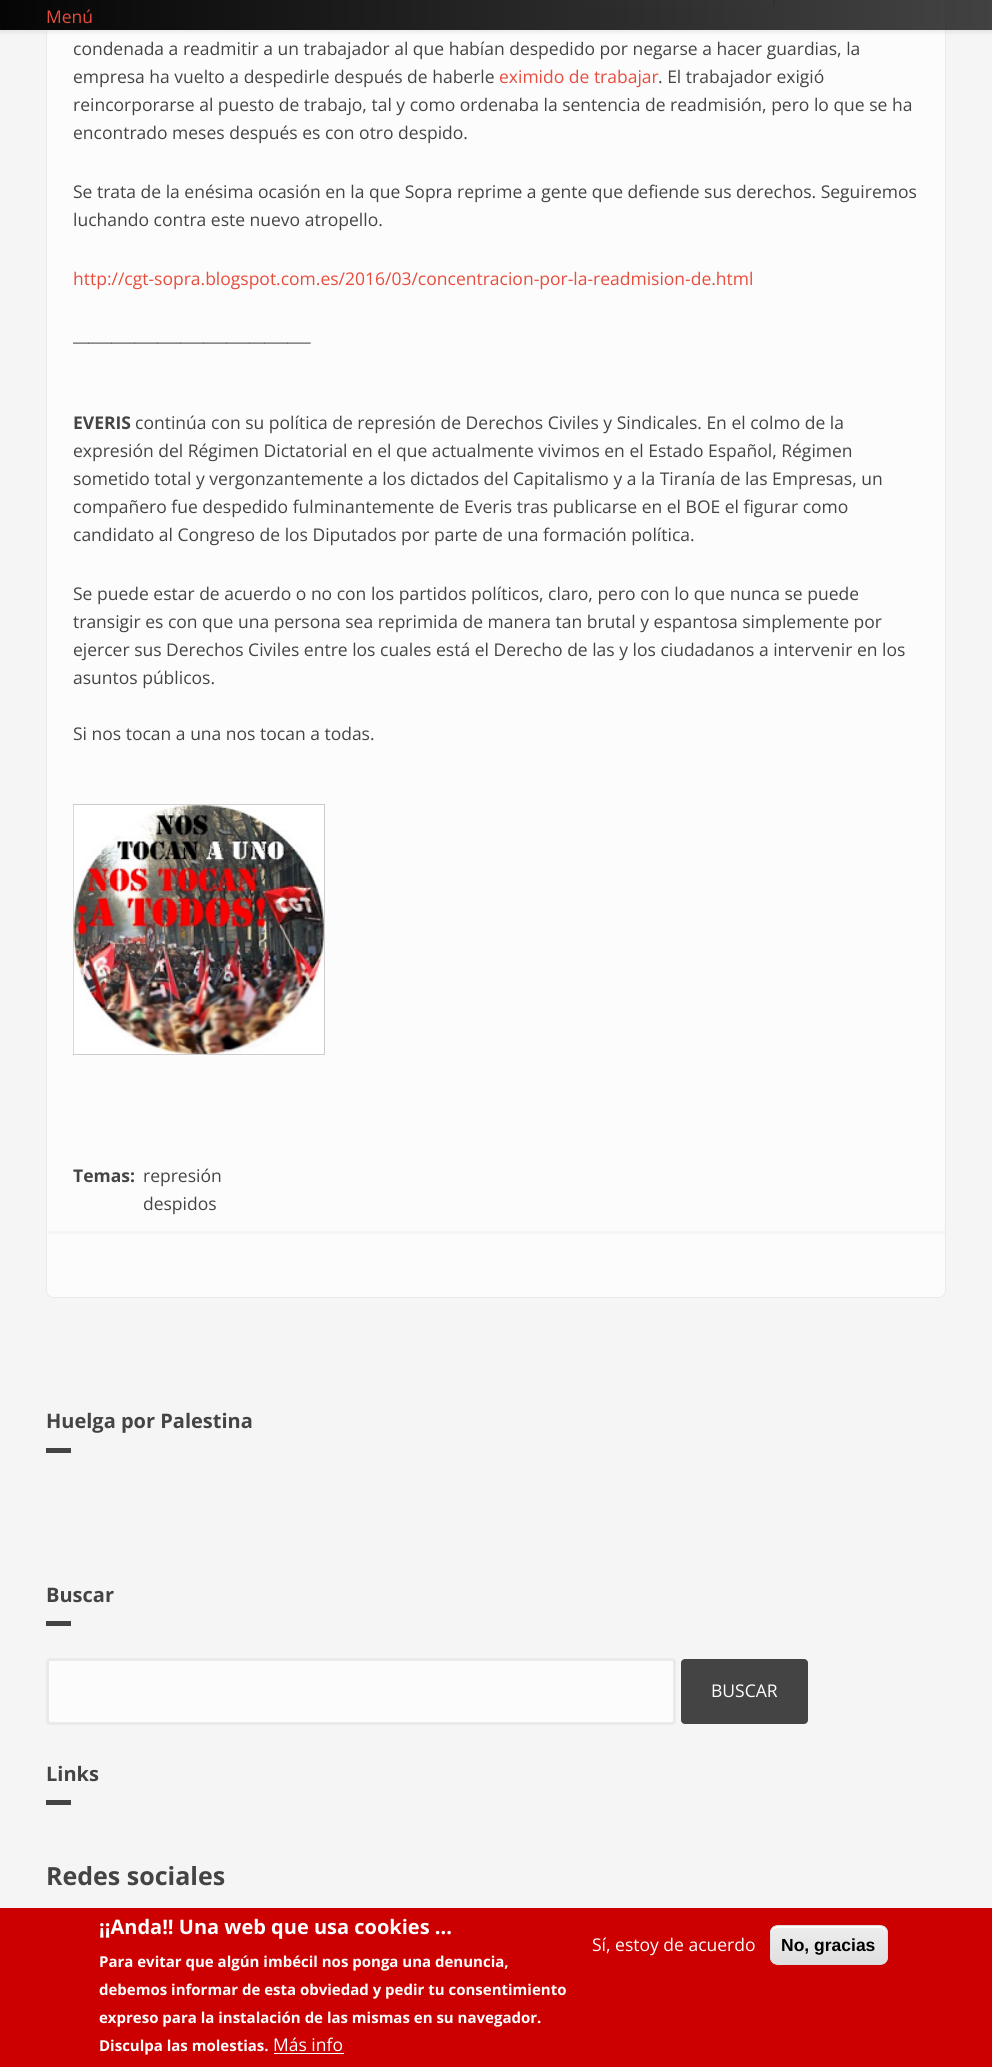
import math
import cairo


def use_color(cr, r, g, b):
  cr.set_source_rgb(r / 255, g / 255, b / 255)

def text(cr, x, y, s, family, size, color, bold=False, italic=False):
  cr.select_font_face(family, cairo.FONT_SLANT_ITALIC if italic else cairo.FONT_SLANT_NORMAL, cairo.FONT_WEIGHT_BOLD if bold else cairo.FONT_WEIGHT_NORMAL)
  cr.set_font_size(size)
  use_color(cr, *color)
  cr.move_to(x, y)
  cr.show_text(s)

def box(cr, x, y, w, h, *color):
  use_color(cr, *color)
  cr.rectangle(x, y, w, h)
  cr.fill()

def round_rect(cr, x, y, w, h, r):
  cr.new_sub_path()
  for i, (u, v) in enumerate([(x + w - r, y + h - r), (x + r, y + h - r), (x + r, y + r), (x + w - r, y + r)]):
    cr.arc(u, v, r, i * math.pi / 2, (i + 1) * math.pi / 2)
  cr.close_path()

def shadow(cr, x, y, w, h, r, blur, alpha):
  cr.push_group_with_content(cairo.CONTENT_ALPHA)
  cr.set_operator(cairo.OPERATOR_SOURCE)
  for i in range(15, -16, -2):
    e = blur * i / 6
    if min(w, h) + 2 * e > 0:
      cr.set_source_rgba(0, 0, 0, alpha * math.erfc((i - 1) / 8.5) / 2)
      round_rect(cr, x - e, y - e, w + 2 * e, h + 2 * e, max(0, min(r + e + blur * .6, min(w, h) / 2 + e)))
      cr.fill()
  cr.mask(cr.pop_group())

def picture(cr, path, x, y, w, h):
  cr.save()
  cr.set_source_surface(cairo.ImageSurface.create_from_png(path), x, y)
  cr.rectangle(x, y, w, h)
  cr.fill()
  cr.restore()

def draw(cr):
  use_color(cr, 245, 245, 245)
  cr.paint()
  use_color(cr, 252, 252, 252)
  round_rect(cr, 46.5, -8.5, 899, 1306, 7.5)
  cr.fill_preserve()
  use_color(cr, 234, 234, 234)
  cr.set_line_width(1)
  cr.stroke()
  cr.rectangle(73.5, -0.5, 700, 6)
  use_color(cr, 204, 204, 204)
  cr.stroke()
  box(cr, 73, 0, 700, 6, 255, 255, 255)
  cr.save()
  cr.rectangle(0, 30, 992, 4)
  cr.clip()
  use_color(cr, 0, 0, 0)
  shadow(cr, 0, 3, 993, 30, 0, 2.5, 0.07)
  cr.restore()
  gradient = cairo.LinearGradient(0, 15, 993, 15)
  gradient.add_color_stop_rgba(0, 0, 0, 0, 0.98)
  gradient.add_color_stop_rgba(1, 0, 0, 0, 0.73)
  cr.set_source(gradient)
  cr.rectangle(0, 0, 992, 30)
  cr.fill()
  cr.rectangle(73.5, 804.5, 251, 250)
  use_color(cr, 204, 204, 204)
  cr.stroke()
  picture(cr, "img_01.png", 73, 805, 251, 249)
  box(cr, 48, 1231, 897, 3, 245, 245, 245)
  box(cr, 46, 1448, 25, 5, 68, 68, 68)
  box(cr, 46, 1621, 25, 5, 68, 68, 68)
  use_color(cr, 252, 252, 252)
  round_rect(cr, 47.5, 1659.5, 627, 64, 2.5)
  cr.fill_preserve()
  use_color(cr, 234, 234, 234)
  cr.set_line_width(3)
  cr.stroke()
  use_color(cr, 68, 68, 68)
  round_rect(cr, 681, 1659, 127, 65, 4)
  cr.fill()
  box(cr, 46, 1800, 25, 5, 68, 68, 68)
  box(cr, 0, 1908, 992, 159, 204, 0, 0)
  box(cr, 274, 2053, 70, 1, 255, 255, 255)
  cr.save()
  round_rect(cr, 770, 1925, 118, 40, 8)
  cr.clip()
  gradient = cairo.LinearGradient(829, 1926, 829, 1964)
  gradient.add_color_stop_rgba(0.05, 0.929, 0.929, 0.929, 1)
  gradient.add_color_stop_rgba(1, 0.875, 0.875, 0.875, 1)
  cr.set_source(gradient)
  cr.rectangle(770, 1926, 118, 38)
  cr.fill()
  cr.restore()
  cr.new_path()
  cr.move_to(778, 1928)
  cr.line_to(880, 1928)
  cr.curve_to(883, 1928, 886, 1930, 886, 1934)
  cr.line_to(886, 1932)
  cr.curve_to(886, 1929, 883, 1926, 880, 1926)
  cr.line_to(777, 1926)
  cr.curve_to(774, 1926, 771, 1929, 771, 1932)
  cr.line_to(771, 1934)
  cr.curve_to(771, 1930, 774, 1928, 778, 1928)
  cr.close_path()
  cr.fill()
  round_rect(cr, 770.5, 1925.5, 117, 39, 7.5)
  use_color(cr, 220, 220, 220)
  cr.set_line_width(1)
  cr.stroke()
  text(cr, 46, 23, "Menú", "Open Sans", 17.5, (231, 76, 60))
  text(cr, 73, 55, "condenada a readmitir a un trabajador al que habían despedido por negarse a hacer guardias, la", "Open Sans", 17.5, (68, 68, 68))
  text(cr, 73, 83, "empresa ha vuelto a despedirle después de haberle", "Open Sans", 17.5, (68, 68, 68))
  text(cr, 499, 83, "eximido de trabajar", "Open Sans", 17.5, (231, 76, 60))
  text(cr, 658, 83, ". El trabajador exigió", "Open Sans", 17.5, (68, 68, 68))
  text(cr, 73, 111, "reincorporarse al puesto de trabajo, tal y como ordenaba la sentencia de readmisión, pero lo que se ha", "Open Sans", 17.5, (68, 68, 68))
  text(cr, 73, 139, "encontrado meses después es con otro despido.", "Open Sans", 17.5, (68, 68, 68))
  text(cr, 73, 198, "Se trata de la enésima ocasión en la que Sopra reprime a gente que defiende sus derechos. Seguiremos", "Open Sans", 17.5, (68, 68, 68))
  text(cr, 73, 226, "luchando contra este nuevo atropello.", "Open Sans", 17.5, (68, 68, 68))
  text(cr, 73, 285, "http://cgt-sopra.blogspot.com.es/2016/03/concentracion-por-la-readmision-de.html", "Open Sans", 17.5, (231, 76, 60))
  text(cr, 73, 341, "_______________________________", "Open Sans", 17.5, (68, 68, 68))
  text(cr, 73, 429, "EVERIS", "Open Sans", 17.5, (68, 68, 68), bold=True)
  text(cr, 135, 429, "continúa con su política de represión de Derechos Civiles y Sindicales. En el colmo de la", "Open Sans", 17.5, (68, 68, 68))
  text(cr, 73, 457, "expresión del Régimen Dictatorial en el que actualmente vivimos en el Estado Español, Régimen", "Open Sans", 17.5, (68, 68, 68))
  text(cr, 73, 485, "sometido total y vergonzantemente a los dictados del Capitalismo y a la Tiranía de las Empresas, un", "Open Sans", 17.5, (68, 68, 68))
  text(cr, 73, 513, "compañero fue despedido fulminantemente de Everis tras publicarse en el BOE el figurar como", "Open Sans", 17.5, (68, 68, 68))
  text(cr, 73, 541, "candidato al Congreso de los Diputados por parte de una formación política.", "Open Sans", 17.5, (68, 68, 68))
  text(cr, 73, 600, "Se puede estar de acuerdo o no con los partidos políticos, claro, pero con lo que nunca se puede", "Open Sans", 17.5, (68, 68, 68))
  text(cr, 73, 628, "transigir es con que una persona sea reprimida de manera tan brutal y espantosa simplemente por", "Open Sans", 17.5, (68, 68, 68))
  text(cr, 73, 656, "ejercer sus Derechos Civiles entre los cuales está el Derecho de las y los ciudadanos a intervenir en los", "Open Sans", 17.5, (68, 68, 68))
  text(cr, 73, 684, "asuntos públicos.", "Open Sans", 17.5, (68, 68, 68))
  text(cr, 73, 740, "Si nos tocan a una nos tocan a todas.", "Open Sans", 17.5, (68, 68, 68))
  text(cr, 73, 1182, "Temas:", "Open Sans", 17.5, (68, 68, 68), bold=True)
  text(cr, 143, 1182, "represión", "Open Sans", 17.5, (68, 68, 68))
  text(cr, 143, 1210, "despidos", "Open Sans", 17.5, (68, 68, 68))
  text(cr, 46, 1428, "Huelga por Palestina", "Open Sans", 20, (68, 68, 68), bold=True)
  text(cr, 46, 1602, "Buscar", "Open Sans", 20, (68, 68, 68), bold=True)
  text(cr, 711, 1697, "BUSCAR", "Open Sans", 17.5, (255, 255, 255))
  text(cr, 46, 1781, "Links", "Open Sans", 20, (68, 68, 68), bold=True)
  text(cr, 46, 1885, "Redes sociales", "Open Sans", 25, (68, 68, 68), bold=True)
  text(cr, 99, 1934, "¡¡Anda!! Una web que usa cookies ...", "Open Sans", 20, (255, 255, 255), bold=True)
  text(cr, 99, 1967, "Para evitar que algún imbécil nos ponga una denuncia,", "Open Sans", 15, (255, 255, 255), bold=True)
  text(cr, 99, 1995, "debemos informar de esta obviedad y pedir tu consentimiento", "Open Sans", 15, (255, 255, 255), bold=True)
  text(cr, 99, 2023, "expreso para la instalación de las mismas en su navegador.", "Open Sans", 15, (255, 255, 255), bold=True)
  text(cr, 99, 2051, "Disculpa las molestias.", "Open Sans", 15, (255, 255, 255), bold=True)
  text(cr, 273, 2051, "Más info", "Open Sans", 17.5, (255, 255, 255))
  text(cr, 592, 1951, "Sí, estoy de acuerdo", "Open Sans", 17.5, (255, 255, 255))
  text(cr, 781, 1951, "No, gracias", "Liberation Sans", 17.5, (0, 0, 0), bold=True)


surface = cairo.ImageSurface(cairo.FORMAT_RGB24, 992, 2067)
cr = cairo.Context(surface)
options = cairo.FontOptions()
options.set_hint_metrics(cairo.HINT_METRICS_OFF)
options.set_hint_style(cairo.HINT_STYLE_NONE)
cr.set_font_options(options)
cr.set_miter_limit(4)
draw(cr)
surface.write_to_png("out.png")
